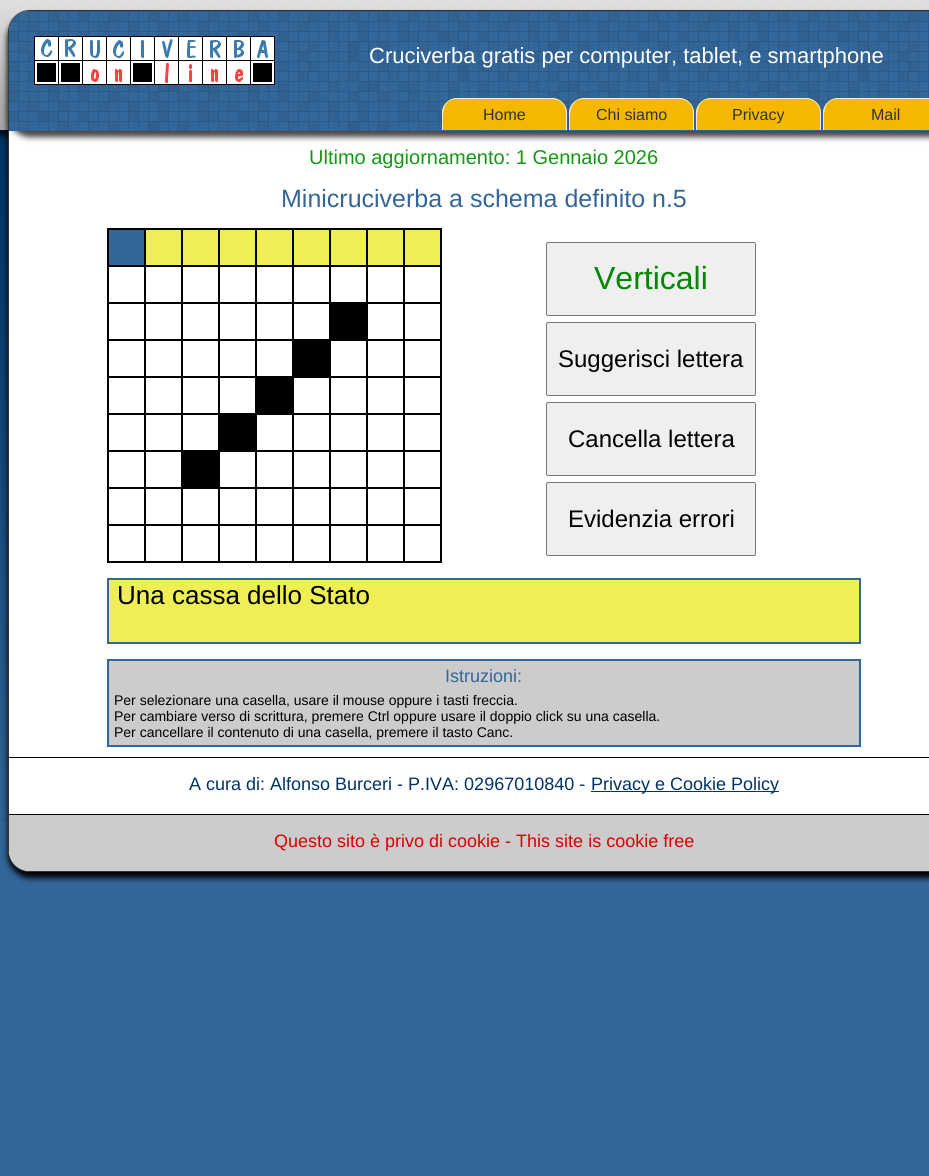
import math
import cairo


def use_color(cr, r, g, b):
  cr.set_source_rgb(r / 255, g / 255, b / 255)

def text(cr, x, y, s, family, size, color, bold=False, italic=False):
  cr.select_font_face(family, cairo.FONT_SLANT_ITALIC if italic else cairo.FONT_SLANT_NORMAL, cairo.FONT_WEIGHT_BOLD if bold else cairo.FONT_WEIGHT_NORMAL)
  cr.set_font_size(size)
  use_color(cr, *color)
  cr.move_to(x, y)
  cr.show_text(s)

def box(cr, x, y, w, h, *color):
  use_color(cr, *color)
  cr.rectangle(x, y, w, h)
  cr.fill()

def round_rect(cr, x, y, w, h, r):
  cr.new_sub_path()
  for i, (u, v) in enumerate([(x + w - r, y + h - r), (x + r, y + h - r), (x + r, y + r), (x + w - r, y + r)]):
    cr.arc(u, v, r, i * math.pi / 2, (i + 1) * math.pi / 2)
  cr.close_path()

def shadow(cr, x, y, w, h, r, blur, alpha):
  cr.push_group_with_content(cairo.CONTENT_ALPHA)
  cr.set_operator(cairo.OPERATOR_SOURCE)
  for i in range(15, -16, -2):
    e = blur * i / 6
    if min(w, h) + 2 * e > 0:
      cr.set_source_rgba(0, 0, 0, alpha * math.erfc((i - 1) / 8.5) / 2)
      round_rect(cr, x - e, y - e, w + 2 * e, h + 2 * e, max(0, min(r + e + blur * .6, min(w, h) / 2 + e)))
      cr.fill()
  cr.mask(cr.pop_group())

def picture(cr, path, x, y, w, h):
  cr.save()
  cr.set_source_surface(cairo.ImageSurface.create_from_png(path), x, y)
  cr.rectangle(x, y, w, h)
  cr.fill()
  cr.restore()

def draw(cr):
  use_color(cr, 51, 102, 153)
  cr.paint()
  picture(cr, "img_01.png", 0, 0, 929, 822)
  use_color(cr, 0, 0, 0)
  shadow(cr, 8, 16, 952, 862, 22, 3, 1)
  use_color(cr, 255, 255, 255)
  round_rect(cr, 8.5, 10.5, 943, 861, 21.5)
  cr.fill_preserve()
  use_color(cr, 51, 51, 51)
  cr.set_line_width(1)
  cr.stroke()
  use_color(cr, 68, 68, 68)
  shadow(cr, 9, 17, 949, 120, 20, 3, 1)
  use_color(cr, 51, 102, 153)
  cr.new_path()
  cr.move_to(29, 11)
  cr.line_to(929, 11)
  cr.curve_to(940, 11, 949, 20, 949, 31)
  cr.line_to(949, 131)
  cr.line_to(9, 131)
  cr.line_to(9, 31)
  cr.curve_to(9, 20, 18, 11, 29, 11)
  cr.close_path()
  cr.fill()
  picture(cr, "img_02.png", 9, 11, 920, 120)
  picture(cr, "img_03.png", 34, 36, 241, 49)
  use_color(cr, 245, 184, 0)
  cr.new_path()
  cr.move_to(457, 98)
  cr.line_to(552, 98)
  cr.curve_to(560.5, 98, 567, 104.5, 567, 113)
  cr.line_to(567, 130)
  cr.line_to(442, 130)
  cr.line_to(442, 113)
  cr.curve_to(442, 104.5, 448.5, 98, 457, 98)
  cr.close_path()
  cr.fill()
  use_color(cr, 238, 238, 238)
  cr.set_fill_rule(cairo.FILL_RULE_EVEN_ODD)
  cr.new_path()
  cr.move_to(457, 98)
  cr.line_to(552, 98)
  cr.curve_to(560, 98, 567, 105, 567, 113)
  cr.line_to(567, 130)
  cr.line_to(442, 130)
  cr.line_to(442, 113)
  cr.curve_to(442, 105, 449, 98, 457, 98)
  cr.close_path()
  cr.move_to(457, 99)
  cr.line_to(552, 99)
  cr.curve_to(560, 99, 566, 105, 566, 113)
  cr.line_to(566, 130)
  cr.line_to(443, 130)
  cr.curve_to(443, 119, 440, 99, 457, 99)
  cr.close_path()
  cr.fill()
  use_color(cr, 245, 184, 0)
  cr.new_path()
  cr.move_to(584, 98)
  cr.line_to(679, 98)
  cr.curve_to(687.5, 98, 694, 104.5, 694, 113)
  cr.line_to(694, 130)
  cr.line_to(569, 130)
  cr.line_to(569, 113)
  cr.curve_to(569, 104.5, 575.5, 98, 584, 98)
  cr.close_path()
  cr.fill()
  use_color(cr, 238, 238, 238)
  cr.new_path()
  cr.move_to(584, 98)
  cr.line_to(679, 98)
  cr.curve_to(687, 98, 694, 105, 694, 113)
  cr.line_to(694, 130)
  cr.line_to(569, 130)
  cr.line_to(569, 113)
  cr.curve_to(569, 105, 576, 98, 584, 98)
  cr.close_path()
  cr.move_to(584, 99)
  cr.line_to(679, 99)
  cr.curve_to(687, 99, 693, 105, 693, 113)
  cr.line_to(693, 130)
  cr.line_to(570, 130)
  cr.curve_to(570, 119, 567, 99, 584, 99)
  cr.close_path()
  cr.fill()
  use_color(cr, 245, 184, 0)
  cr.new_path()
  cr.move_to(711, 98)
  cr.line_to(806, 98)
  cr.curve_to(814.5, 98, 821, 104.5, 821, 113)
  cr.line_to(821, 130)
  cr.line_to(696, 130)
  cr.line_to(696, 113)
  cr.curve_to(696, 104.5, 702.5, 98, 711, 98)
  cr.close_path()
  cr.fill()
  use_color(cr, 238, 238, 238)
  cr.new_path()
  cr.move_to(711, 98)
  cr.line_to(806, 98)
  cr.curve_to(814, 98, 821, 105, 821, 113)
  cr.line_to(821, 130)
  cr.line_to(696, 130)
  cr.line_to(696, 113)
  cr.curve_to(696, 105, 703, 98, 711, 98)
  cr.close_path()
  cr.move_to(711, 99)
  cr.line_to(806, 99)
  cr.curve_to(814, 99, 820, 105, 820, 113)
  cr.line_to(820, 130)
  cr.line_to(697, 130)
  cr.curve_to(697, 119, 694, 99, 711, 99)
  cr.close_path()
  cr.fill()
  use_color(cr, 245, 184, 0)
  cr.new_path()
  cr.move_to(838, 98)
  cr.line_to(929, 98)
  cr.curve_to(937.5, 98, 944, 104.5, 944, 113)
  cr.line_to(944, 130)
  cr.line_to(823, 130)
  cr.line_to(823, 113)
  cr.curve_to(823, 104.5, 829.5, 98, 838, 98)
  cr.close_path()
  cr.fill()
  use_color(cr, 238, 238, 238)
  cr.new_path()
  cr.move_to(838, 98)
  cr.line_to(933, 98)
  cr.curve_to(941, 98, 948, 105, 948, 113)
  cr.line_to(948, 130)
  cr.line_to(823, 130)
  cr.line_to(823, 113)
  cr.curve_to(823, 105, 830, 98, 838, 98)
  cr.close_path()
  cr.move_to(838, 99)
  cr.line_to(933, 99)
  cr.curve_to(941, 99, 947, 105, 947, 113)
  cr.line_to(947, 130)
  cr.line_to(824, 130)
  cr.curve_to(824, 119, 821, 99, 838, 99)
  cr.close_path()
  cr.fill()
  cr.rectangle(107.5, 228.5, 334, 334)
  use_color(cr, 0, 0, 0)
  cr.stroke()
  use_color(cr, 51, 102, 153)
  cr.rectangle(108.5, 229.5, 36, 36)
  cr.fill_preserve()
  use_color(cr, 0, 0, 0)
  cr.stroke()
  use_color(cr, 238, 238, 85)
  cr.rectangle(145.5, 229.5, 36, 36)
  cr.fill_preserve()
  use_color(cr, 0, 0, 0)
  cr.stroke()
  use_color(cr, 238, 238, 85)
  cr.rectangle(182.5, 229.5, 36, 36)
  cr.fill_preserve()
  use_color(cr, 0, 0, 0)
  cr.stroke()
  use_color(cr, 238, 238, 85)
  cr.rectangle(219.5, 229.5, 36, 36)
  cr.fill_preserve()
  use_color(cr, 0, 0, 0)
  cr.stroke()
  use_color(cr, 238, 238, 85)
  cr.rectangle(256.5, 229.5, 36, 36)
  cr.fill_preserve()
  use_color(cr, 0, 0, 0)
  cr.stroke()
  use_color(cr, 238, 238, 85)
  cr.rectangle(293.5, 229.5, 36, 36)
  cr.fill_preserve()
  use_color(cr, 0, 0, 0)
  cr.stroke()
  use_color(cr, 238, 238, 85)
  cr.rectangle(330.5, 229.5, 36, 36)
  cr.fill_preserve()
  use_color(cr, 0, 0, 0)
  cr.stroke()
  use_color(cr, 238, 238, 85)
  cr.rectangle(367.5, 229.5, 36, 36)
  cr.fill_preserve()
  use_color(cr, 0, 0, 0)
  cr.stroke()
  use_color(cr, 238, 238, 85)
  cr.rectangle(404.5, 229.5, 36, 36)
  cr.fill_preserve()
  use_color(cr, 0, 0, 0)
  cr.stroke()
  cr.rectangle(108.5, 266.5, 36, 36)
  cr.stroke()
  cr.rectangle(145.5, 266.5, 36, 36)
  cr.stroke()
  cr.rectangle(182.5, 266.5, 36, 36)
  cr.stroke()
  cr.rectangle(219.5, 266.5, 36, 36)
  cr.stroke()
  cr.rectangle(256.5, 266.5, 36, 36)
  cr.stroke()
  cr.rectangle(293.5, 266.5, 36, 36)
  cr.stroke()
  cr.rectangle(330.5, 266.5, 36, 36)
  cr.stroke()
  cr.rectangle(367.5, 266.5, 36, 36)
  cr.stroke()
  cr.rectangle(404.5, 266.5, 36, 36)
  cr.stroke()
  cr.rectangle(108.5, 303.5, 36, 36)
  cr.stroke()
  cr.rectangle(145.5, 303.5, 36, 36)
  cr.stroke()
  cr.rectangle(182.5, 303.5, 36, 36)
  cr.stroke()
  cr.rectangle(219.5, 303.5, 36, 36)
  cr.stroke()
  cr.rectangle(256.5, 303.5, 36, 36)
  cr.stroke()
  cr.rectangle(293.5, 303.5, 36, 36)
  cr.stroke()
  box(cr, 330, 303, 37, 37, 0, 0, 0)
  cr.rectangle(367.5, 303.5, 36, 36)
  cr.stroke()
  cr.rectangle(404.5, 303.5, 36, 36)
  cr.stroke()
  cr.rectangle(108.5, 340.5, 36, 36)
  cr.stroke()
  cr.rectangle(145.5, 340.5, 36, 36)
  cr.stroke()
  cr.rectangle(182.5, 340.5, 36, 36)
  cr.stroke()
  cr.rectangle(219.5, 340.5, 36, 36)
  cr.stroke()
  cr.rectangle(256.5, 340.5, 36, 36)
  cr.stroke()
  box(cr, 293, 340, 37, 37, 0, 0, 0)
  cr.rectangle(330.5, 340.5, 36, 36)
  cr.stroke()
  cr.rectangle(367.5, 340.5, 36, 36)
  cr.stroke()
  cr.rectangle(404.5, 340.5, 36, 36)
  cr.stroke()
  cr.rectangle(108.5, 377.5, 36, 36)
  cr.stroke()
  cr.rectangle(145.5, 377.5, 36, 36)
  cr.stroke()
  cr.rectangle(182.5, 377.5, 36, 36)
  cr.stroke()
  cr.rectangle(219.5, 377.5, 36, 36)
  cr.stroke()
  box(cr, 256, 377, 37, 37, 0, 0, 0)
  cr.rectangle(293.5, 377.5, 36, 36)
  cr.stroke()
  cr.rectangle(330.5, 377.5, 36, 36)
  cr.stroke()
  cr.rectangle(367.5, 377.5, 36, 36)
  cr.stroke()
  cr.rectangle(404.5, 377.5, 36, 36)
  cr.stroke()
  cr.rectangle(108.5, 414.5, 36, 36)
  cr.stroke()
  cr.rectangle(145.5, 414.5, 36, 36)
  cr.stroke()
  cr.rectangle(182.5, 414.5, 36, 36)
  cr.stroke()
  box(cr, 219, 414, 37, 37, 0, 0, 0)
  cr.rectangle(256.5, 414.5, 36, 36)
  cr.stroke()
  cr.rectangle(293.5, 414.5, 36, 36)
  cr.stroke()
  cr.rectangle(330.5, 414.5, 36, 36)
  cr.stroke()
  cr.rectangle(367.5, 414.5, 36, 36)
  cr.stroke()
  cr.rectangle(404.5, 414.5, 36, 36)
  cr.stroke()
  cr.rectangle(108.5, 451.5, 36, 36)
  cr.stroke()
  cr.rectangle(145.5, 451.5, 36, 36)
  cr.stroke()
  box(cr, 182, 451, 37, 37, 0, 0, 0)
  cr.rectangle(219.5, 451.5, 36, 36)
  cr.stroke()
  cr.rectangle(256.5, 451.5, 36, 36)
  cr.stroke()
  cr.rectangle(293.5, 451.5, 36, 36)
  cr.stroke()
  cr.rectangle(330.5, 451.5, 36, 36)
  cr.stroke()
  cr.rectangle(367.5, 451.5, 36, 36)
  cr.stroke()
  cr.rectangle(404.5, 451.5, 36, 36)
  cr.stroke()
  cr.rectangle(108.5, 488.5, 36, 36)
  cr.stroke()
  cr.rectangle(145.5, 488.5, 36, 36)
  cr.stroke()
  cr.rectangle(182.5, 488.5, 36, 36)
  cr.stroke()
  cr.rectangle(219.5, 488.5, 36, 36)
  cr.stroke()
  cr.rectangle(256.5, 488.5, 36, 36)
  cr.stroke()
  cr.rectangle(293.5, 488.5, 36, 36)
  cr.stroke()
  cr.rectangle(330.5, 488.5, 36, 36)
  cr.stroke()
  cr.rectangle(367.5, 488.5, 36, 36)
  cr.stroke()
  cr.rectangle(404.5, 488.5, 36, 36)
  cr.stroke()
  cr.rectangle(108.5, 525.5, 36, 36)
  cr.stroke()
  cr.rectangle(145.5, 525.5, 36, 36)
  cr.stroke()
  cr.rectangle(182.5, 525.5, 36, 36)
  cr.stroke()
  cr.rectangle(219.5, 525.5, 36, 36)
  cr.stroke()
  cr.rectangle(256.5, 525.5, 36, 36)
  cr.stroke()
  cr.rectangle(293.5, 525.5, 36, 36)
  cr.stroke()
  cr.rectangle(330.5, 525.5, 36, 36)
  cr.stroke()
  cr.rectangle(367.5, 525.5, 36, 36)
  cr.stroke()
  cr.rectangle(404.5, 525.5, 36, 36)
  cr.stroke()
  use_color(cr, 239, 239, 239)
  round_rect(cr, 546.5, 242.5, 209, 73, 1.5)
  cr.fill_preserve()
  use_color(cr, 118, 118, 118)
  cr.stroke()
  use_color(cr, 239, 239, 239)
  round_rect(cr, 546.5, 322.5, 209, 73, 1.5)
  cr.fill_preserve()
  use_color(cr, 118, 118, 118)
  cr.stroke()
  use_color(cr, 239, 239, 239)
  round_rect(cr, 546.5, 402.5, 209, 73, 1.5)
  cr.fill_preserve()
  use_color(cr, 118, 118, 118)
  cr.stroke()
  use_color(cr, 239, 239, 239)
  round_rect(cr, 546.5, 482.5, 209, 73, 1.5)
  cr.fill_preserve()
  use_color(cr, 118, 118, 118)
  cr.stroke()
  use_color(cr, 238, 238, 85)
  cr.rectangle(108, 579, 752, 64)
  cr.fill_preserve()
  use_color(cr, 51, 102, 153)
  cr.set_line_width(2)
  cr.stroke()
  use_color(cr, 204, 204, 204)
  cr.rectangle(108, 660, 752, 86)
  cr.fill_preserve()
  use_color(cr, 51, 102, 153)
  cr.stroke()
  box(cr, 9, 757, 920, 1, 0, 0, 0)
  box(cr, 591, 791, 188, 1, 0, 51, 102)
  use_color(cr, 204, 204, 204)
  cr.new_path()
  cr.move_to(9, 814)
  cr.line_to(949, 814)
  cr.line_to(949, 851)
  cr.curve_to(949, 862, 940, 871, 929, 871)
  cr.line_to(29, 871)
  cr.curve_to(18, 871, 9, 862, 9, 851)
  cr.close_path()
  cr.fill()
  box(cr, 9, 814, 920, 1, 0, 0, 0)
  text(cr, 369, 63, "Cruciverba gratis per computer, tablet, e smartphone", "Liberation Sans", 22, (255, 255, 255))
  text(cr, 483, 120, "Home", "Liberation Sans", 16, (51, 51, 51))
  text(cr, 596, 120, "Chi siamo", "Liberation Sans", 16, (51, 51, 51))
  text(cr, 732, 120, "Privacy", "Liberation Sans", 16, (51, 51, 51))
  text(cr, 871, 120, "Mail", "Liberation Sans", 16, (51, 51, 51))
  text(cr, 309, 164, "Ultimo aggiornamento: 1 Gennaio 2026", "Liberation Sans", 20, (17, 153, 17))
  text(cr, 281, 207, "Minicruciverba a schema definito n.5", "Liberation Sans", 25, (51, 102, 153))
  text(cr, 594, 289, "Verticali", "Liberation Sans", 32, (0, 136, 0))
  text(cr, 558, 367, "Suggerisci lettera", "Liberation Sans", 24, (0, 0, 0))
  text(cr, 568, 447, "Cancella lettera", "Liberation Sans", 24, (0, 0, 0))
  text(cr, 568, 527, "Evidenzia errori", "Liberation Sans", 24, (0, 0, 0))
  text(cr, 117, 604, "Una cassa dello Stato", "Liberation Sans", 26, (0, 0, 0))
  text(cr, 445, 682, "Istruzioni:", "Liberation Sans", 18, (51, 102, 153))
  text(cr, 114, 705, "Per selezionare una casella, usare il mouse oppure i tasti freccia.", "Liberation Sans", 14, (0, 0, 0))
  text(cr, 114, 721, "Per cambiare verso di scrittura, premere Ctrl oppure usare il doppio click su una casella.", "Liberation Sans", 14, (0, 0, 0))
  text(cr, 114, 737, "Per cancellare il contenuto di una casella, premere il tasto Canc.", "Liberation Sans", 14, (0, 0, 0))
  text(cr, 189, 790, "A cura di: Alfonso Burceri - P.IVA: 02967010840 -", "Liberation Sans", 18, (0, 51, 102))
  text(cr, 591, 790, "Privacy e Cookie Policy", "Liberation Sans", 18, (0, 51, 102))
  text(cr, 274, 847, "Questo sito è privo di cookie - This site is cookie free", "Liberation Sans", 18, (221, 0, 0))


surface = cairo.ImageSurface(cairo.FORMAT_RGB24, 929, 1176)
cr = cairo.Context(surface)
options = cairo.FontOptions()
options.set_hint_metrics(cairo.HINT_METRICS_OFF)
options.set_hint_style(cairo.HINT_STYLE_NONE)
cr.set_font_options(options)
cr.set_miter_limit(4)
draw(cr)
surface.write_to_png("out.png")
